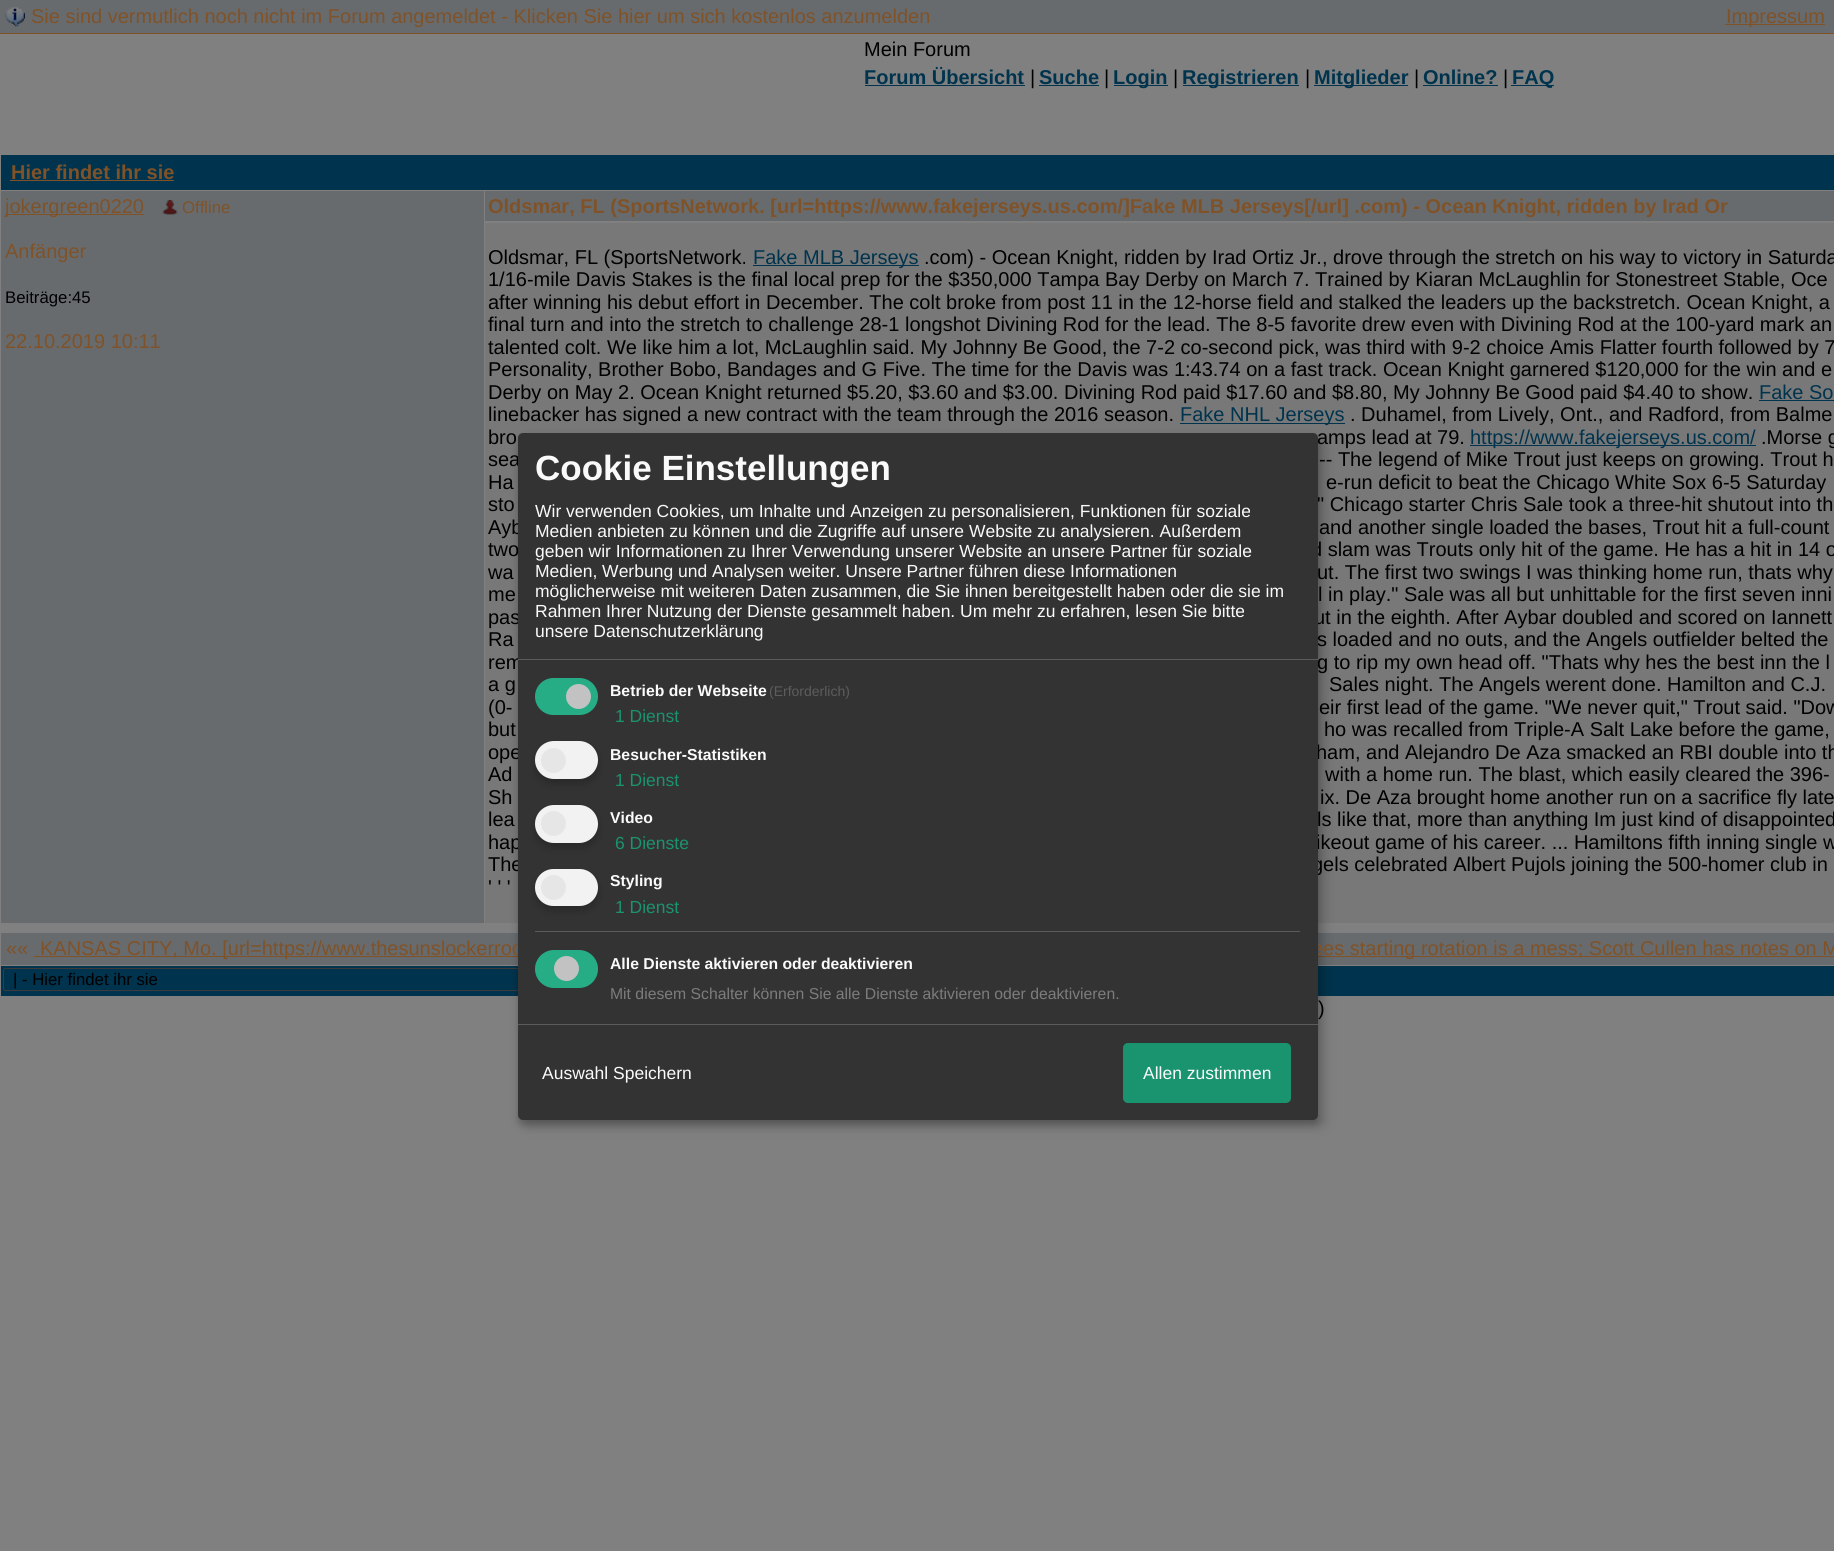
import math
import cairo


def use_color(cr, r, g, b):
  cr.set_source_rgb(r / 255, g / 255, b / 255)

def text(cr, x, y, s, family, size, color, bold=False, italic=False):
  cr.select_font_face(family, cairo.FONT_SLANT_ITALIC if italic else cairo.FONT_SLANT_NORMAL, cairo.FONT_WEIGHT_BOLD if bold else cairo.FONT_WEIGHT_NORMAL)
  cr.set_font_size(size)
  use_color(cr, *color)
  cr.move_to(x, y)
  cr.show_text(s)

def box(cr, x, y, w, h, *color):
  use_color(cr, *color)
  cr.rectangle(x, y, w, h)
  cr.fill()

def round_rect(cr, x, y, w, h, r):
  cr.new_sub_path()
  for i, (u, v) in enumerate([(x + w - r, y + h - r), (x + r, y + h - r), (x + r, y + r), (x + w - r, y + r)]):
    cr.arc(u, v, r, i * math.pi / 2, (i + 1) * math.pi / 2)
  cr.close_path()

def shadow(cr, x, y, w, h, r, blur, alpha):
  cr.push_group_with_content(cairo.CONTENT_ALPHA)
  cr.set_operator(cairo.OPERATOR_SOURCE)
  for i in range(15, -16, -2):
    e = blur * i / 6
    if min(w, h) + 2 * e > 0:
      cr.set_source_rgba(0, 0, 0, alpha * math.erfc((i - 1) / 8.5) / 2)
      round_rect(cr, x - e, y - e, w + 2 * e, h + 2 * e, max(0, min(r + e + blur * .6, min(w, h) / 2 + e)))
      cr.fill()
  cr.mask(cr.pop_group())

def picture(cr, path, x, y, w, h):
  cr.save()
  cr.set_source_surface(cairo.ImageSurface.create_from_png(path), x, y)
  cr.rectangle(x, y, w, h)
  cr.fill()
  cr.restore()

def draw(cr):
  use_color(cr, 128, 128, 128)
  cr.paint()
  box(cr, 0, 0, 1834, 33, 103, 107, 110)
  box(cr, 0, 33, 1834, 1, 128, 82, 40)
  picture(cr, "img_01.png", 5, 7, 20, 20)
  box(cr, 1725, 24, 100, 1, 128, 82, 40)
  box(cr, 865, 85, 160, 1, 0, 51, 77)
  box(cr, 1039, 85, 60, 1, 0, 51, 77)
  box(cr, 1114, 85, 54, 1, 0, 51, 77)
  box(cr, 1183, 85, 116, 1, 0, 51, 77)
  box(cr, 1314, 85, 94, 1, 0, 51, 77)
  box(cr, 1423, 85, 75, 1, 0, 51, 77)
  box(cr, 1511, 85, 43, 1, 0, 51, 77)
  box(cr, 1, 155, 1833, 35, 0, 51, 77)
  box(cr, 10, 180, 164, 1, 128, 82, 40)
  box(cr, 1, 191, 483, 732, 103, 107, 110)
  box(cr, 5, 214, 139, 1, 128, 82, 40)
  picture(cr, "img_02.png", 162, 200, 16, 15)
  box(cr, 485, 191, 1349, 30, 103, 107, 110)
  box(cr, 485, 223, 1349, 700, 120, 120, 120)
  box(cr, 753, 265, 166, 1, 0, 51, 77)
  box(cr, 1759, 400, 75, 1, 0, 51, 77)
  box(cr, 1180, 423, 165, 1, 0, 51, 77)
  box(cr, 1470, 445, 286, 1, 0, 51, 77)
  box(cr, 1, 933, 1833, 32, 103, 107, 110)
  box(cr, 34, 956, 484, 1, 128, 82, 40)
  box(cr, 1318, 956, 516, 1, 128, 82, 40)
  box(cr, 1, 966, 1833, 30, 0, 51, 77)
  round_rect(cr, 3.5, 968.5, 840, 22, 2)
  use_color(cr, 59, 59, 59)
  cr.set_line_width(1)
  cr.stroke()
  use_color(cr, 0, 0, 0)
  shadow(cr, 524, 439, 800, 687, 5, 6, 0.19)
  shadow(cr, 518, 438, 800, 687, 5, 4, 0.2)
  text(cr, 31, 23, "Sie sind vermutlich noch nicht im Forum angemeldet - Klicken Sie hier um sich kostenlos anzumelden", "Liberation Sans", 20, (128, 82, 40))
  text(cr, 1726, 23, "Impressum", "Liberation Sans", 20, (128, 82, 40))
  text(cr, 864, 56, "Mein Forum", "Liberation Sans", 20, (0, 0, 0))
  text(cr, 864, 84, "Forum Übersicht", "Liberation Sans", 20, (0, 51, 77), bold=True)
  text(cr, 1030, 84, "|", "Liberation Sans", 20, (0, 0, 0))
  text(cr, 1039, 84, "Suche", "Liberation Sans", 20, (0, 51, 77), bold=True)
  text(cr, 1104, 84, "|", "Liberation Sans", 20, (0, 0, 0))
  text(cr, 1113, 84, "Login", "Liberation Sans", 20, (0, 51, 77), bold=True)
  text(cr, 1173, 84, "|", "Liberation Sans", 20, (0, 0, 0))
  text(cr, 1182, 84, "Registrieren", "Liberation Sans", 20, (0, 51, 77), bold=True)
  text(cr, 1305, 84, "|", "Liberation Sans", 20, (0, 0, 0))
  text(cr, 1314, 84, "Mitglieder", "Liberation Sans", 20, (0, 51, 77), bold=True)
  text(cr, 1414, 84, "|", "Liberation Sans", 20, (0, 0, 0))
  text(cr, 1423, 84, "Online?", "Liberation Sans", 20, (0, 51, 77), bold=True)
  text(cr, 1503, 84, "|", "Liberation Sans", 20, (0, 0, 0))
  text(cr, 1512, 84, "FAQ", "Liberation Sans", 20, (0, 51, 77), bold=True)
  text(cr, 11, 179, "Hier findet ihr sie", "Liberation Sans", 20, (128, 82, 40), bold=True)
  text(cr, 5, 213, "jokergreen0220", "Liberation Sans", 20, (128, 82, 40))
  text(cr, 182, 213, "Offline", "Liberation Sans", 16.75, (128, 82, 40))
  text(cr, 5, 258, "Anfänger", "Liberation Sans", 20, (128, 82, 40))
  text(cr, 5, 303, "Beiträge:45", "Liberation Sans", 16.75, (0, 0, 0))
  text(cr, 5, 348, "22.10.2019 10:11", "Liberation Sans", 20, (128, 82, 40))
  text(cr, 488, 213, "Oldsmar, FL (SportsNetwork. [url=https://www.fakejerseys.us.com/]Fake MLB Jerseys[/url] .com) - Ocean Knight, ridden by Irad Or", "Liberation Sans", 20, (128, 82, 40), bold=True)
  text(cr, 488, 264, "Oldsmar, FL (SportsNetwork.", "Liberation Sans", 20, (0, 0, 0))
  text(cr, 753, 264, "Fake MLB Jerseys", "Liberation Sans", 20, (0, 51, 77))
  text(cr, 924, 264, ".com) - Ocean Knight, ridden by Irad Ortiz Jr., drove through the stretch on his way to victory in Saturda", "Liberation Sans", 20, (0, 0, 0))
  text(cr, 488, 286, "1/16-mile Davis Stakes is the final local prep for the $350,000 Tampa Bay Derby on March 7. Trained by Kiaran McLaughlin for Stonestreet Stable, Oce", "Liberation Sans", 20, (0, 0, 0))
  text(cr, 488, 309, "after winning his debut effort in December. The colt broke from post 11 in the 12-horse field and stalked the leaders up the backstretch. Ocean Knight, a", "Liberation Sans", 20, (0, 0, 0))
  text(cr, 488, 331, "final turn and into the stretch to challenge 28-1 longshot Divining Rod for the lead. The 8-5 favorite drew even with Divining Rod at the 100-yard mark an", "Liberation Sans", 20, (0, 0, 0))
  text(cr, 488, 354, "talented colt. We like him a lot, McLaughlin said. My Johnny Be Good, the 7-2 co-second pick, was third with 9-2 choice Amis Flatter fourth followed by 7", "Liberation Sans", 20, (0, 0, 0))
  text(cr, 488, 376, "Personality, Brother Bobo, Bandages and G Five. The time for the Davis was 1:43.74 on a fast track. Ocean Knight garnered $120,000 for the win and e", "Liberation Sans", 20, (0, 0, 0))
  text(cr, 488, 399, "Derby on May 2. Ocean Knight returned $5.20, $3.60 and $3.00. Divining Rod paid $17.60 and $8.80, My Johnny Be Good paid $4.40 to show.", "Liberation Sans", 20, (0, 0, 0))
  text(cr, 1759, 399, "Fake So", "Liberation Sans", 20, (0, 51, 77))
  text(cr, 488, 421, "linebacker has signed a new contract with the team through the 2016 season.", "Liberation Sans", 20, (0, 0, 0))
  text(cr, 1180, 421, "Fake NHL Jerseys", "Liberation Sans", 20, (0, 51, 77))
  text(cr, 1350, 421, ". Duhamel, from Lively, Ont., and Radford, from Balme", "Liberation Sans", 20, (0, 0, 0))
  text(cr, 488, 444, "bro", "Liberation Sans", 20, (0, 0, 0))
  text(cr, 1317, 444, "amps lead at 79.", "Liberation Sans", 20, (0, 0, 0))
  text(cr, 1470, 444, "https://www.fakejerseys.us.com/", "Liberation Sans", 20, (0, 51, 77))
  text(cr, 1761, 444, ".Morse g", "Liberation Sans", 20, (0, 0, 0))
  text(cr, 488, 466, "sea", "Liberation Sans", 20, (0, 0, 0))
  text(cr, 1319, 466, "-- The legend of Mike Trout just keeps on growing. Trout h", "Liberation Sans", 20, (0, 0, 0))
  text(cr, 488, 489, "Ha", "Liberation Sans", 20, (0, 0, 0))
  text(cr, 1326, 489, "e-run deficit to beat the Chicago White Sox 6-5 Saturday", "Liberation Sans", 20, (0, 0, 0))
  text(cr, 488, 511, "sto", "Liberation Sans", 20, (0, 0, 0))
  text(cr, 1317, 511, "\" Chicago starter Chris Sale took a three-hit shutout into th", "Liberation Sans", 20, (0, 0, 0))
  text(cr, 488, 534, "Ayb", "Liberation Sans", 20, (0, 0, 0))
  text(cr, 1319, 534, "and another single loaded the bases, Trout hit a full-count", "Liberation Sans", 20, (0, 0, 0))
  text(cr, 488, 556, "two", "Liberation Sans", 20, (0, 0, 0))
  text(cr, 1311, 556, "d slam was Trouts only hit of the game. He has a hit in 14 o", "Liberation Sans", 20, (0, 0, 0))
  text(cr, 488, 579, "wa", "Liberation Sans", 20, (0, 0, 0))
  text(cr, 1317, 579, "ut. The first two swings I was thinking home run, thats why", "Liberation Sans", 20, (0, 0, 0))
  text(cr, 488, 601, "me", "Liberation Sans", 20, (0, 0, 0))
  text(cr, 1318, 601, "l in play.\" Sale was all but unhittable for the first seven inni", "Liberation Sans", 20, (0, 0, 0))
  text(cr, 488, 624, "pas", "Liberation Sans", 20, (0, 0, 0))
  text(cr, 1314, 624, "ut in the eighth. After Aybar doubled and scored on Iannett", "Liberation Sans", 20, (0, 0, 0))
  text(cr, 488, 646, "Ra", "Liberation Sans", 20, (0, 0, 0))
  text(cr, 1317, 646, "s loaded and no outs, and the Angels outfielder belted the", "Liberation Sans", 20, (0, 0, 0))
  text(cr, 488, 669, "rem", "Liberation Sans", 20, (0, 0, 0))
  text(cr, 1317, 669, "g to rip my own head off. \"Thats why hes the best inn the l", "Liberation Sans", 20, (0, 0, 0))
  text(cr, 488, 691, "a g", "Liberation Sans", 20, (0, 0, 0))
  text(cr, 1329, 691, "Sales night. The Angels werent done. Hamilton and C.J.", "Liberation Sans", 20, (0, 0, 0))
  text(cr, 488, 714, "(0-", "Liberation Sans", 20, (0, 0, 0))
  text(cr, 1319, 714, "eir first lead of the game. \"We never quit,\" Trout said. \"Dow", "Liberation Sans", 20, (0, 0, 0))
  text(cr, 488, 736, "but", "Liberation Sans", 20, (0, 0, 0))
  text(cr, 1324, 736, "ho was recalled from Triple-A Salt Lake before the game,", "Liberation Sans", 20, (0, 0, 0))
  text(cr, 488, 759, "ope", "Liberation Sans", 20, (0, 0, 0))
  text(cr, 1316, 759, "ham, and Alejandro De Aza smacked an RBI double into th", "Liberation Sans", 20, (0, 0, 0))
  text(cr, 488, 781, "Ad", "Liberation Sans", 20, (0, 0, 0))
  text(cr, 1325, 781, "with a home run. The blast, which easily cleared the 396-", "Liberation Sans", 20, (0, 0, 0))
  text(cr, 488, 804, "Sh", "Liberation Sans", 20, (0, 0, 0))
  text(cr, 1320, 804, "ix. De Aza brought home another run on a sacrifice fly late", "Liberation Sans", 20, (0, 0, 0))
  text(cr, 488, 826, "lea", "Liberation Sans", 20, (0, 0, 0))
  text(cr, 1317, 826, "ls like that, more than anything Im just kind of disappointed", "Liberation Sans", 20, (0, 0, 0))
  text(cr, 488, 849, "hap", "Liberation Sans", 20, (0, 0, 0))
  text(cr, 1316, 849, "ikeout game of his career. ... Hamiltons fifth inning single w", "Liberation Sans", 20, (0, 0, 0))
  text(cr, 488, 871, "The", "Liberation Sans", 20, (0, 0, 0))
  text(cr, 1312, 871, "gels celebrated Albert Pujols joining the 500-homer club in", "Liberation Sans", 20, (0, 0, 0))
  text(cr, 488, 894, "' ' '", "Liberation Sans", 20, (0, 0, 0))
  text(cr, 6, 955, "««", "Liberation Sans", 20, (128, 82, 40))
  text(cr, 40, 955, "KANSAS CITY, Mo. [url=https://www.thesunslockerroo", "Liberation Sans", 20, (128, 82, 40))
  text(cr, 1312, 955, "ees starting rotation is a mess; Scott Cullen has notes on M", "Liberation Sans", 20, (128, 82, 40))
  text(cr, 13, 985, "| - Hier findet ihr sie", "Liberation Sans", 16.75, (0, 0, 0))
  text(cr, 1318, 1015, ")", "Liberation Sans", 20, (0, 0, 0))
  use_color(cr, 51, 51, 51)
  round_rect(cr, 518, 433, 800, 687, 5)
  cr.fill()
  box(cr, 518, 659, 800, 1, 92, 92, 92)
  text(cr, 535, 480, "Cookie Einstellungen", "Liberation Sans", 35, (250, 250, 250), bold=True)
  text(cr, 535, 517, "Wir verwenden Cookies, um Inhalte und Anzeigen zu personalisieren, Funktionen für soziale", "Liberation Sans", 17.5, (250, 250, 250))
  text(cr, 535, 537, "Medien anbieten zu können und die Zugriffe auf unsere Website zu analysieren. Außerdem", "Liberation Sans", 17.5, (250, 250, 250))
  text(cr, 535, 557, "geben wir Informationen zu Ihrer Verwendung unserer Website an unsere Partner für soziale", "Liberation Sans", 17.5, (250, 250, 250))
  text(cr, 535, 577, "Medien, Werbung und Analysen weiter. Unsere Partner führen diese Informationen", "Liberation Sans", 17.5, (250, 250, 250))
  text(cr, 535, 597, "möglicherweise mit weiteren Daten zusammen, die Sie ihnen bereitgestellt haben oder die sie im", "Liberation Sans", 17.5, (250, 250, 250))
  text(cr, 535, 617, "Rahmen Ihrer Nutzung der Dienste gesammelt haben. Um mehr zu erfahren, lesen Sie bitte", "Liberation Sans", 17.5, (250, 250, 250))
  text(cr, 535, 637, "unsere Datenschutzerklärung", "Liberation Sans", 17.5, (250, 250, 250))
  use_color(cr, 39, 173, 133)
  round_rect(cr, 535, 678, 63, 37, 18.5)
  cr.fill()
  use_color(cr, 194, 194, 194)
  cr.arc(578.5, 696.5, 12.5, 0, 2 * math.pi)
  cr.fill()
  text(cr, 610, 696, "Betrieb der Webseite", "Liberation Sans", 15.75, (250, 250, 250), bold=True)
  text(cr, 769, 696, "(Erforderlich)", "Liberation Sans", 14, (92, 92, 92))
  text(cr, 615, 722, "1 Dienst", "Liberation Sans", 17.5, (26, 147, 111))
  use_color(cr, 0, 0, 0)
  shadow(cr, 535, 746, 63, 38, 19, 4, 0.2)
  use_color(cr, 242, 242, 242)
  round_rect(cr, 535, 741, 63, 38, 19)
  cr.fill()
  use_color(cr, 230, 230, 230)
  cr.arc(553.5, 760.5, 12.5, 0, 2 * math.pi)
  cr.fill()
  text(cr, 610, 760, "Besucher-Statistiken", "Liberation Sans", 15.75, (250, 250, 250), bold=True)
  text(cr, 615, 786, "1 Dienst", "Liberation Sans", 17.5, (26, 147, 111))
  use_color(cr, 0, 0, 0)
  shadow(cr, 535, 810, 63, 38, 19, 4, 0.2)
  use_color(cr, 242, 242, 242)
  round_rect(cr, 535, 805, 63, 38, 19)
  cr.fill()
  use_color(cr, 230, 230, 230)
  cr.arc(553.5, 823.5, 12.5, 0, 2 * math.pi)
  cr.fill()
  text(cr, 610, 823, "Video", "Liberation Sans", 15.75, (250, 250, 250), bold=True)
  text(cr, 615, 849, "6 Dienste", "Liberation Sans", 17.5, (26, 147, 111))
  use_color(cr, 0, 0, 0)
  shadow(cr, 535, 874, 63, 37, 18.5, 4, 0.2)
  use_color(cr, 242, 242, 242)
  round_rect(cr, 535, 869, 63, 37, 18.5)
  cr.fill()
  use_color(cr, 230, 230, 230)
  cr.arc(553.5, 887.5, 12.5, 0, 2 * math.pi)
  cr.fill()
  text(cr, 610, 886, "Styling", "Liberation Sans", 15.75, (250, 250, 250), bold=True)
  text(cr, 615, 913, "1 Dienst", "Liberation Sans", 17.5, (26, 147, 111))
  box(cr, 535, 931, 765, 1, 92, 92, 92)
  use_color(cr, 39, 173, 133)
  round_rect(cr, 535, 950, 63, 38, 19)
  cr.fill()
  use_color(cr, 194, 194, 194)
  cr.arc(566.5, 968.5, 12.5, 0, 2 * math.pi)
  cr.fill()
  text(cr, 610, 969, "Alle Dienste aktivieren oder deaktivieren", "Liberation Sans", 15.75, (250, 250, 250), bold=True)
  text(cr, 610, 999, "Mit diesem Schalter können Sie alle Dienste aktivieren oder deaktivieren.", "Liberation Sans", 15.75, (124, 124, 124))
  box(cr, 518, 1024, 800, 1, 92, 92, 92)
  text(cr, 542, 1079, "Auswahl Speichern", "Liberation Sans", 17.5, (250, 250, 250))
  use_color(cr, 26, 147, 111)
  round_rect(cr, 1123, 1043, 168, 60, 5)
  cr.fill()
  text(cr, 1143, 1079, "Allen zustimmen", "Liberation Sans", 17.5, (250, 250, 250))


surface = cairo.ImageSurface(cairo.FORMAT_RGB24, 1834, 1551)
cr = cairo.Context(surface)
options = cairo.FontOptions()
options.set_hint_metrics(cairo.HINT_METRICS_OFF)
options.set_hint_style(cairo.HINT_STYLE_NONE)
cr.set_font_options(options)
cr.set_miter_limit(4)
draw(cr)
surface.write_to_png("out.png")
